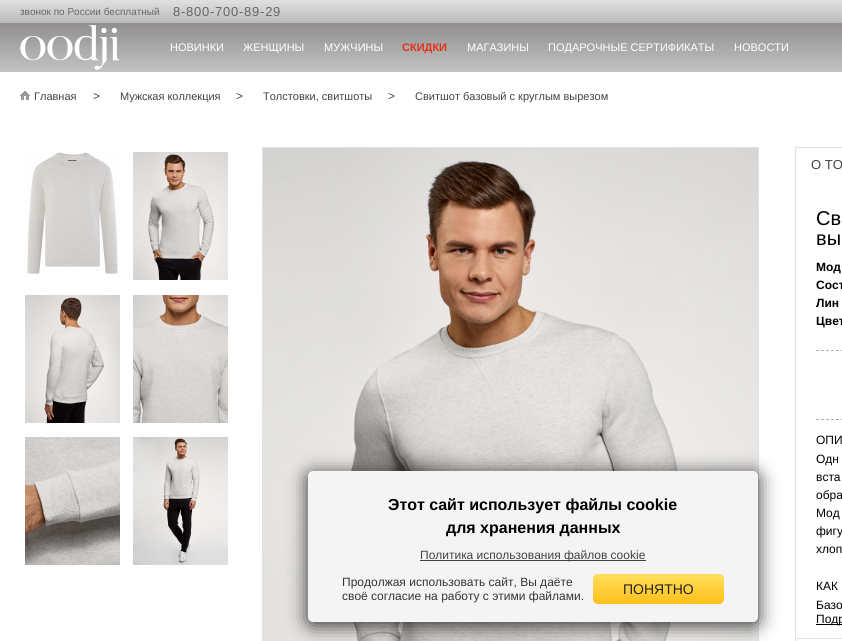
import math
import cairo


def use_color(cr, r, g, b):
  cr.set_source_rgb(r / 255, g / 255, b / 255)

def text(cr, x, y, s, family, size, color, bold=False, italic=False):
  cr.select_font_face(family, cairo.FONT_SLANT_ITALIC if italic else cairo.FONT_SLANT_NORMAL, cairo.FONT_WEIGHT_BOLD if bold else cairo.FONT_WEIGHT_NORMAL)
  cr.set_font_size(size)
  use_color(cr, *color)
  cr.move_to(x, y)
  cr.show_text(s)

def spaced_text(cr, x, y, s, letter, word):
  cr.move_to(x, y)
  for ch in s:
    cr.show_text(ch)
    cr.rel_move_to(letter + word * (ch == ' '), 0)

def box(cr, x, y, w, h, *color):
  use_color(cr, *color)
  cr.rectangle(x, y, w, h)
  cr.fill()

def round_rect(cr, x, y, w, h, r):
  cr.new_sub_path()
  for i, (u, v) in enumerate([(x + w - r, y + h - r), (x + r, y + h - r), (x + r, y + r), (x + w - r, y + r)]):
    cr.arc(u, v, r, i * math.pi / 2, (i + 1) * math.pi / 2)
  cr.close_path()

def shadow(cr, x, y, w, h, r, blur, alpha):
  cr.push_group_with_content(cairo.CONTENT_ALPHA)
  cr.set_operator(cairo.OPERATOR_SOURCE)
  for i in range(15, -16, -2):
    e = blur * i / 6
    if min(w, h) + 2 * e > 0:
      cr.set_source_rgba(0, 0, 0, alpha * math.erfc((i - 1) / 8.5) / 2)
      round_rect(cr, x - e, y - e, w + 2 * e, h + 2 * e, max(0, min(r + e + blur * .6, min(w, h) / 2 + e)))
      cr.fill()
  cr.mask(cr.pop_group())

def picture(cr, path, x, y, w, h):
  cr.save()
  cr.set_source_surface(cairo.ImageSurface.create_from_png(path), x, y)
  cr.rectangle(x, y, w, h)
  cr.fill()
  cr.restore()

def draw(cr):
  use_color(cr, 255, 255, 255)
  cr.paint()
  gradient = cairo.LinearGradient(600, 0, 600, 23)
  gradient.add_color_stop_rgba(0, 0.878, 0.878, 0.878, 1)
  gradient.add_color_stop_rgba(1, 0.733, 0.733, 0.733, 1)
  cr.set_source(gradient)
  cr.rectangle(0, 0, 842, 23)
  cr.fill()
  gradient = cairo.LinearGradient(600, 23, 600, 72)
  gradient.add_color_stop_rgba(0, 0.565, 0.557, 0.557, 1)
  gradient.add_color_stop_rgba(1, 0.765, 0.765, 0.765, 1)
  cr.set_source(gradient)
  cr.rectangle(0, 23, 842, 49)
  cr.fill()
  picture(cr, "img_01.png", 20, 25, 100, 45)
  picture(cr, "img_02.png", 20, 91, 10, 9)
  picture(cr, "img_03.png", 27, 152, 91, 122)
  picture(cr, "img_04.png", 133, 152, 95, 128)
  picture(cr, "img_05.png", 25, 295, 95, 128)
  picture(cr, "img_06.png", 133, 295, 95, 128)
  picture(cr, "img_07.png", 25, 437, 95, 128)
  picture(cr, "img_08.png", 133, 437, 95, 128)
  cr.rectangle(262.5, 147.5, 496, 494)
  use_color(cr, 225, 225, 225)
  cr.set_line_width(1)
  cr.stroke()
  picture(cr, "img_09.png", 263, 148, 495, 493)
  box(cr, 795, 147, 47, 1, 225, 225, 225)
  box(cr, 795, 182, 1, 168, 225, 225, 225)
  box(cr, 795, 147, 1, 36, 225, 225, 225)
  box(cr, 795, 638, 1, 3, 225, 225, 225)
  box(cr, 795, 638, 47, 1, 225, 225, 225)
  box(cr, 795, 350, 1, 289, 225, 225, 225)
  cr.new_path()
  cr.move_to(816, 350.5)
  cr.line_to(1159, 350.5)
  use_color(cr, 176, 176, 176)
  cr.set_dash([3, 2])
  cr.stroke()
  cr.new_path()
  cr.move_to(816, 419.5)
  cr.line_to(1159, 419.5)
  cr.stroke()
  box(cr, 816, 624, 26, 1, 0, 0, 0)
  use_color(cr, 0, 0, 0)
  shadow(cr, 307, 473, 452, 153, 6, 9.5, 0.75)
  use_color(cr, 244, 244, 244)
  round_rect(cr, 308, 471, 450, 151, 5)
  cr.fill()
  box(cr, 420, 560, 226, 1, 64, 64, 64)
  gradient = cairo.LinearGradient(659, 604, 659, 574)
  gradient.add_color_stop_rgba(0, 1, 0.749, 0.106, 1)
  gradient.add_color_stop_rgba(0.93, 1, 0.867, 0.341, 1)
  cr.set_source(gradient)
  round_rect(cr, 593, 574, 131, 30, 5)
  cr.fill()
  text(cr, 20, 15, "звонок по России бесплатный", "Liberation Sans", 10, (102, 102, 102))
  cr.set_font_size(13)
  spaced_text(cr, 173, 16, "8-800-700-89-29", 0.75, 0)
  text(cr, 170, 51, "НОВИНКИ", "Liberation Sans", 11, (255, 255, 255))
  text(cr, 243, 51, "ЖЕНЩИНЫ", "Liberation Sans", 11, (255, 255, 255))
  text(cr, 324, 51, "МУЖЧИНЫ", "Liberation Sans", 11, (255, 255, 255))
  text(cr, 402, 51, "СКИДКИ", "Liberation Sans", 11, (228, 50, 24), bold=True)
  text(cr, 467, 51, "МАГАЗИНЫ", "Liberation Sans", 11, (255, 255, 255))
  text(cr, 548, 51, "ПОДАРОЧНЫЕ СЕРТИФИКАТЫ", "Liberation Sans", 11, (255, 255, 255))
  text(cr, 734, 51, "НОВОСТИ", "Liberation Sans", 11, (255, 255, 255))
  text(cr, 34, 100, "Главная", "Liberation Sans", 11, (67, 67, 67))
  text(cr, 93, 100, ">", "Liberation Sans", 12, (67, 67, 67))
  text(cr, 120, 100, "Мужская коллекция", "Liberation Sans", 11, (67, 67, 67))
  text(cr, 236, 100, ">", "Liberation Sans", 12, (67, 67, 67))
  text(cr, 263, 100, "Толстовки, свитшоты", "Liberation Sans", 11, (67, 67, 67))
  text(cr, 388, 100, ">", "Liberation Sans", 12, (67, 67, 67))
  text(cr, 415, 100, "Свитшот базовый с круглым вырезом", "Liberation Sans", 11, (67, 67, 67))
  text(cr, 811, 169, "О ТО", "Liberation Sans", 13, (67, 67, 67))
  text(cr, 816, 225, "Св", "Liberation Sans", 20, (0, 0, 0))
  text(cr, 816, 245, "вы", "Liberation Sans", 20, (0, 0, 0))
  text(cr, 816, 271, "Мод", "Liberation Sans", 12, (0, 0, 0), bold=True)
  text(cr, 816, 289, "Сост", "Liberation Sans", 12, (0, 0, 0), bold=True)
  text(cr, 816, 307, "Лин", "Liberation Sans", 12, (0, 0, 0), bold=True)
  text(cr, 816, 325, "Цвет", "Liberation Sans", 12, (0, 0, 0), bold=True)
  text(cr, 816, 444, "ОПИ", "Liberation Sans", 12, (0, 0, 0))
  text(cr, 816, 463, "Одн", "Liberation Sans", 12, (0, 0, 0))
  text(cr, 816, 481, "вста", "Liberation Sans", 12, (0, 0, 0))
  text(cr, 816, 499, "обра", "Liberation Sans", 12, (0, 0, 0))
  text(cr, 816, 517, "Мод", "Liberation Sans", 12, (0, 0, 0))
  text(cr, 816, 535, "фигу", "Liberation Sans", 12, (0, 0, 0))
  text(cr, 816, 553, "хлоп", "Liberation Sans", 12, (0, 0, 0))
  text(cr, 816, 590, "КАК", "Liberation Sans", 12, (0, 0, 0))
  text(cr, 816, 609, "Базо", "Liberation Sans", 12, (0, 0, 0))
  text(cr, 816, 623, "Подр", "Liberation Sans", 12, (0, 0, 0))
  text(cr, 388, 510, "Этот сайт использует файлы cookie", "Liberation Sans", 16, (0, 0, 0), bold=True)
  text(cr, 446, 533, "для хранения данных", "Liberation Sans", 16, (0, 0, 0), bold=True)
  text(cr, 420, 559, "Политика использования файлов cookie", "Liberation Sans", 12, (67, 67, 67))
  text(cr, 342, 586, "Продолжая использовать сайт, Вы даёте", "Liberation Sans", 12, (52, 52, 52))
  text(cr, 342, 600, "своё согласие на работу с этими файлами.", "Liberation Sans", 12, (52, 52, 52))
  text(cr, 623, 594, "ПОНЯТНО", "Liberation Sans", 14, (35, 35, 35))


surface = cairo.ImageSurface(cairo.FORMAT_RGB24, 842, 641)
cr = cairo.Context(surface)
options = cairo.FontOptions()
options.set_hint_metrics(cairo.HINT_METRICS_OFF)
options.set_hint_style(cairo.HINT_STYLE_NONE)
cr.set_font_options(options)
cr.set_miter_limit(4)
draw(cr)
surface.write_to_png("out.png")
